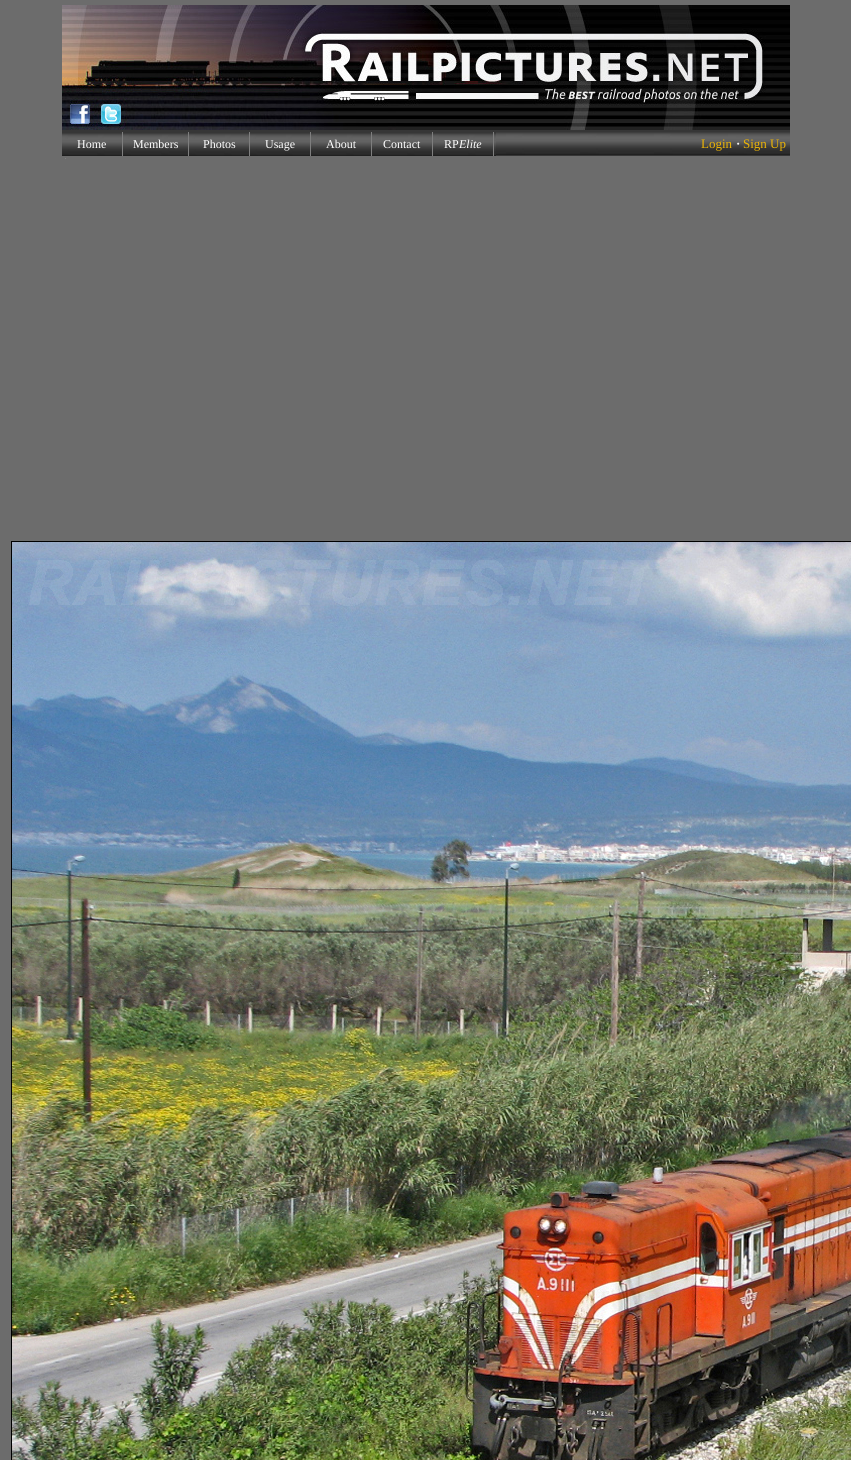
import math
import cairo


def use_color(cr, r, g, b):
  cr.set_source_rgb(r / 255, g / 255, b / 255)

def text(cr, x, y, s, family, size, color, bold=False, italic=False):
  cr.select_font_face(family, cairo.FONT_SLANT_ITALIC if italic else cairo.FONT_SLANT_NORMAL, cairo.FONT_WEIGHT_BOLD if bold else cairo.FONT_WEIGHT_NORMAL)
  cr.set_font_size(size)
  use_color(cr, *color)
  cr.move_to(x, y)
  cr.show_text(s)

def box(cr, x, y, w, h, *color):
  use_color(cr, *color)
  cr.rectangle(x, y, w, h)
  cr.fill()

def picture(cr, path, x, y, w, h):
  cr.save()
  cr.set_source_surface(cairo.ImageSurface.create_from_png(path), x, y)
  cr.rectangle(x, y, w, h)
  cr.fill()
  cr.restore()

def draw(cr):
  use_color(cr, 108, 108, 108)
  cr.paint()
  picture(cr, "img_09.png", 62, 130, 728, 26)
  box(cr, 122, 132, 372, 24, 126, 126, 126)
  picture(cr, "img_01.png", 62, 132, 60, 24)
  picture(cr, "img_02.png", 123, 132, 65, 24)
  picture(cr, "img_01.png", 189, 132, 60, 24)
  picture(cr, "img_01.png", 250, 132, 60, 24)
  picture(cr, "img_01.png", 311, 132, 60, 24)
  picture(cr, "img_01.png", 372, 132, 60, 24)
  picture(cr, "img_01.png", 433, 132, 60, 24)
  picture(cr, "img_03.png", 494, 132, 2, 24)
  picture(cr, "img_04.png", 62, 5, 728, 93)
  picture(cr, "img_05.png", 62, 98, 33, 32)
  picture(cr, "img_06.png", 95, 98, 32, 32)
  picture(cr, "img_07.png", 127, 98, 29, 32)
  picture(cr, "img_08.png", 156, 98, 634, 32)
  box(cr, 65, 158, 1, 1, 127, 127, 127)
  cr.rectangle(11.5, 541.5, 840, 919)
  use_color(cr, 0, 0, 0)
  cr.set_line_width(1)
  cr.stroke()
  picture(cr, "img_10.png", 12, 542, 839, 918)
  text(cr, 77, 148, "Home", "Liberation Serif", 12, (255, 255, 255))
  text(cr, 133, 148, "Members", "Liberation Serif", 12, (255, 255, 255))
  text(cr, 203, 148, "Photos", "Liberation Serif", 12, (255, 255, 255))
  text(cr, 265, 148, "Usage", "Liberation Serif", 12, (255, 255, 255))
  text(cr, 326, 148, "About", "Liberation Serif", 12, (255, 255, 255))
  text(cr, 383, 148, "Contact", "Liberation Serif", 12, (255, 255, 255))
  text(cr, 444, 148, "RP", "Liberation Serif", 12, (255, 255, 255))
  text(cr, 459, 148, "Elite", "Liberation Serif", 12, (255, 255, 255), italic=True)
  text(cr, 701, 148, "Login", "Liberation Serif", 13, (236, 180, 6))
  text(cr, 736, 148, "·", "Liberation Serif", 13, (243, 243, 243), bold=True)
  text(cr, 743, 148, "Sign Up", "Liberation Serif", 13, (236, 180, 6))


surface = cairo.ImageSurface(cairo.FORMAT_RGB24, 851, 1460)
cr = cairo.Context(surface)
options = cairo.FontOptions()
options.set_hint_metrics(cairo.HINT_METRICS_OFF)
options.set_hint_style(cairo.HINT_STYLE_NONE)
cr.set_font_options(options)
cr.set_miter_limit(4)
draw(cr)
surface.write_to_png("out.png")
